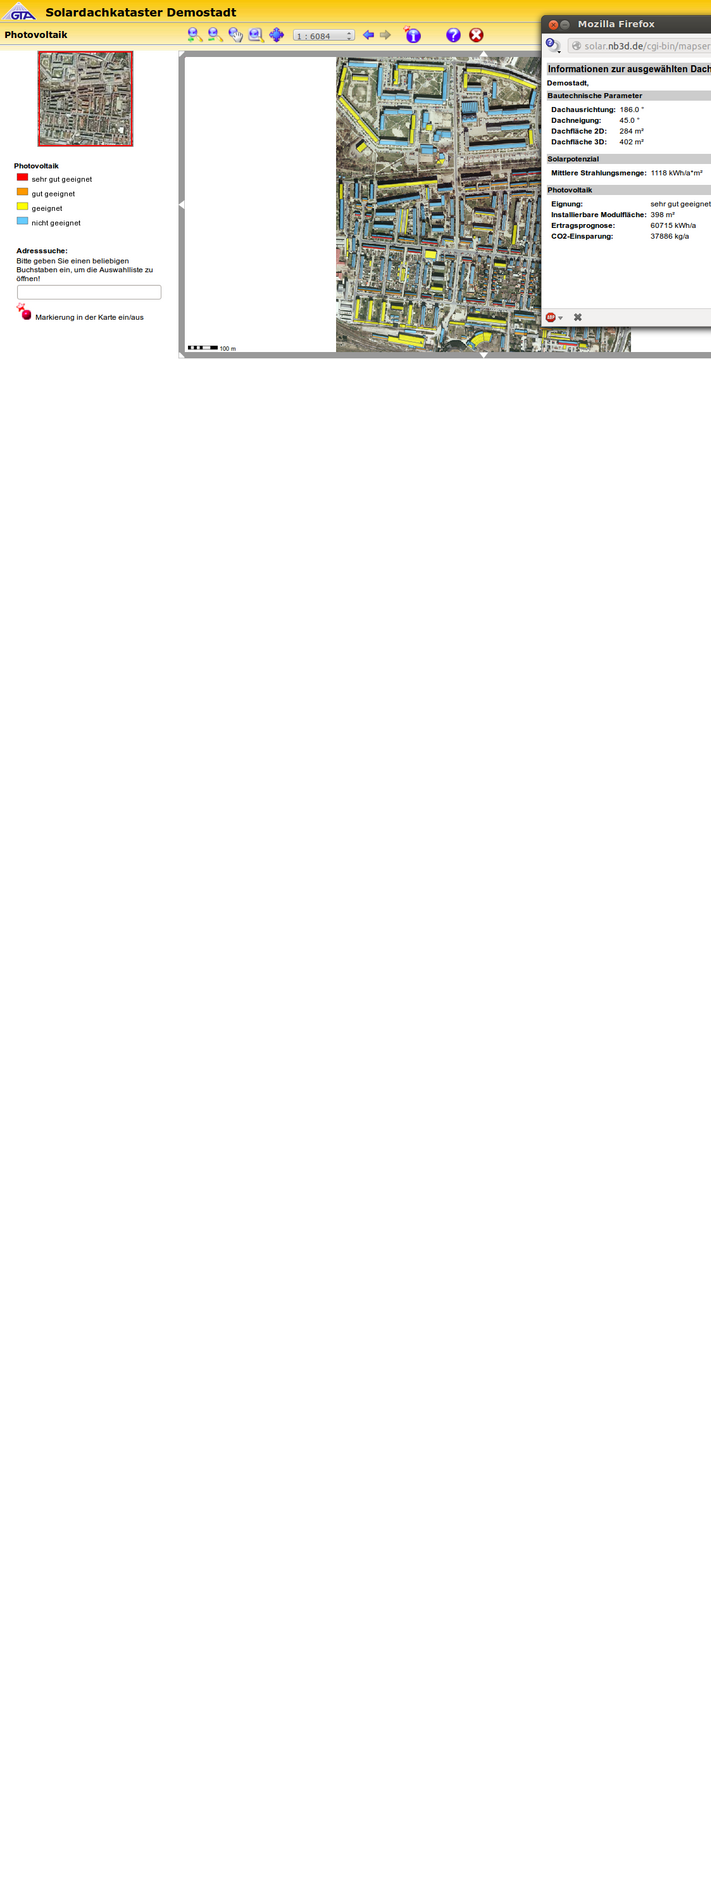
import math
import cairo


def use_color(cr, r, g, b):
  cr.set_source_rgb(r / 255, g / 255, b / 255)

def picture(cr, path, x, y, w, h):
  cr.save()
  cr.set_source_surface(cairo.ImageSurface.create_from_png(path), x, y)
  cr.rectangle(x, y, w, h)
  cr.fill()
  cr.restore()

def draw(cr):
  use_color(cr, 255, 255, 255)
  cr.paint()
  picture(cr, "img_01.png", 0, 0, 711, 359)


surface = cairo.ImageSurface(cairo.FORMAT_RGB24, 711, 1896)
cr = cairo.Context(surface)
options = cairo.FontOptions()
options.set_hint_metrics(cairo.HINT_METRICS_OFF)
options.set_hint_style(cairo.HINT_STYLE_NONE)
cr.set_font_options(options)
cr.set_miter_limit(4)
draw(cr)
surface.write_to_png("out.png")
